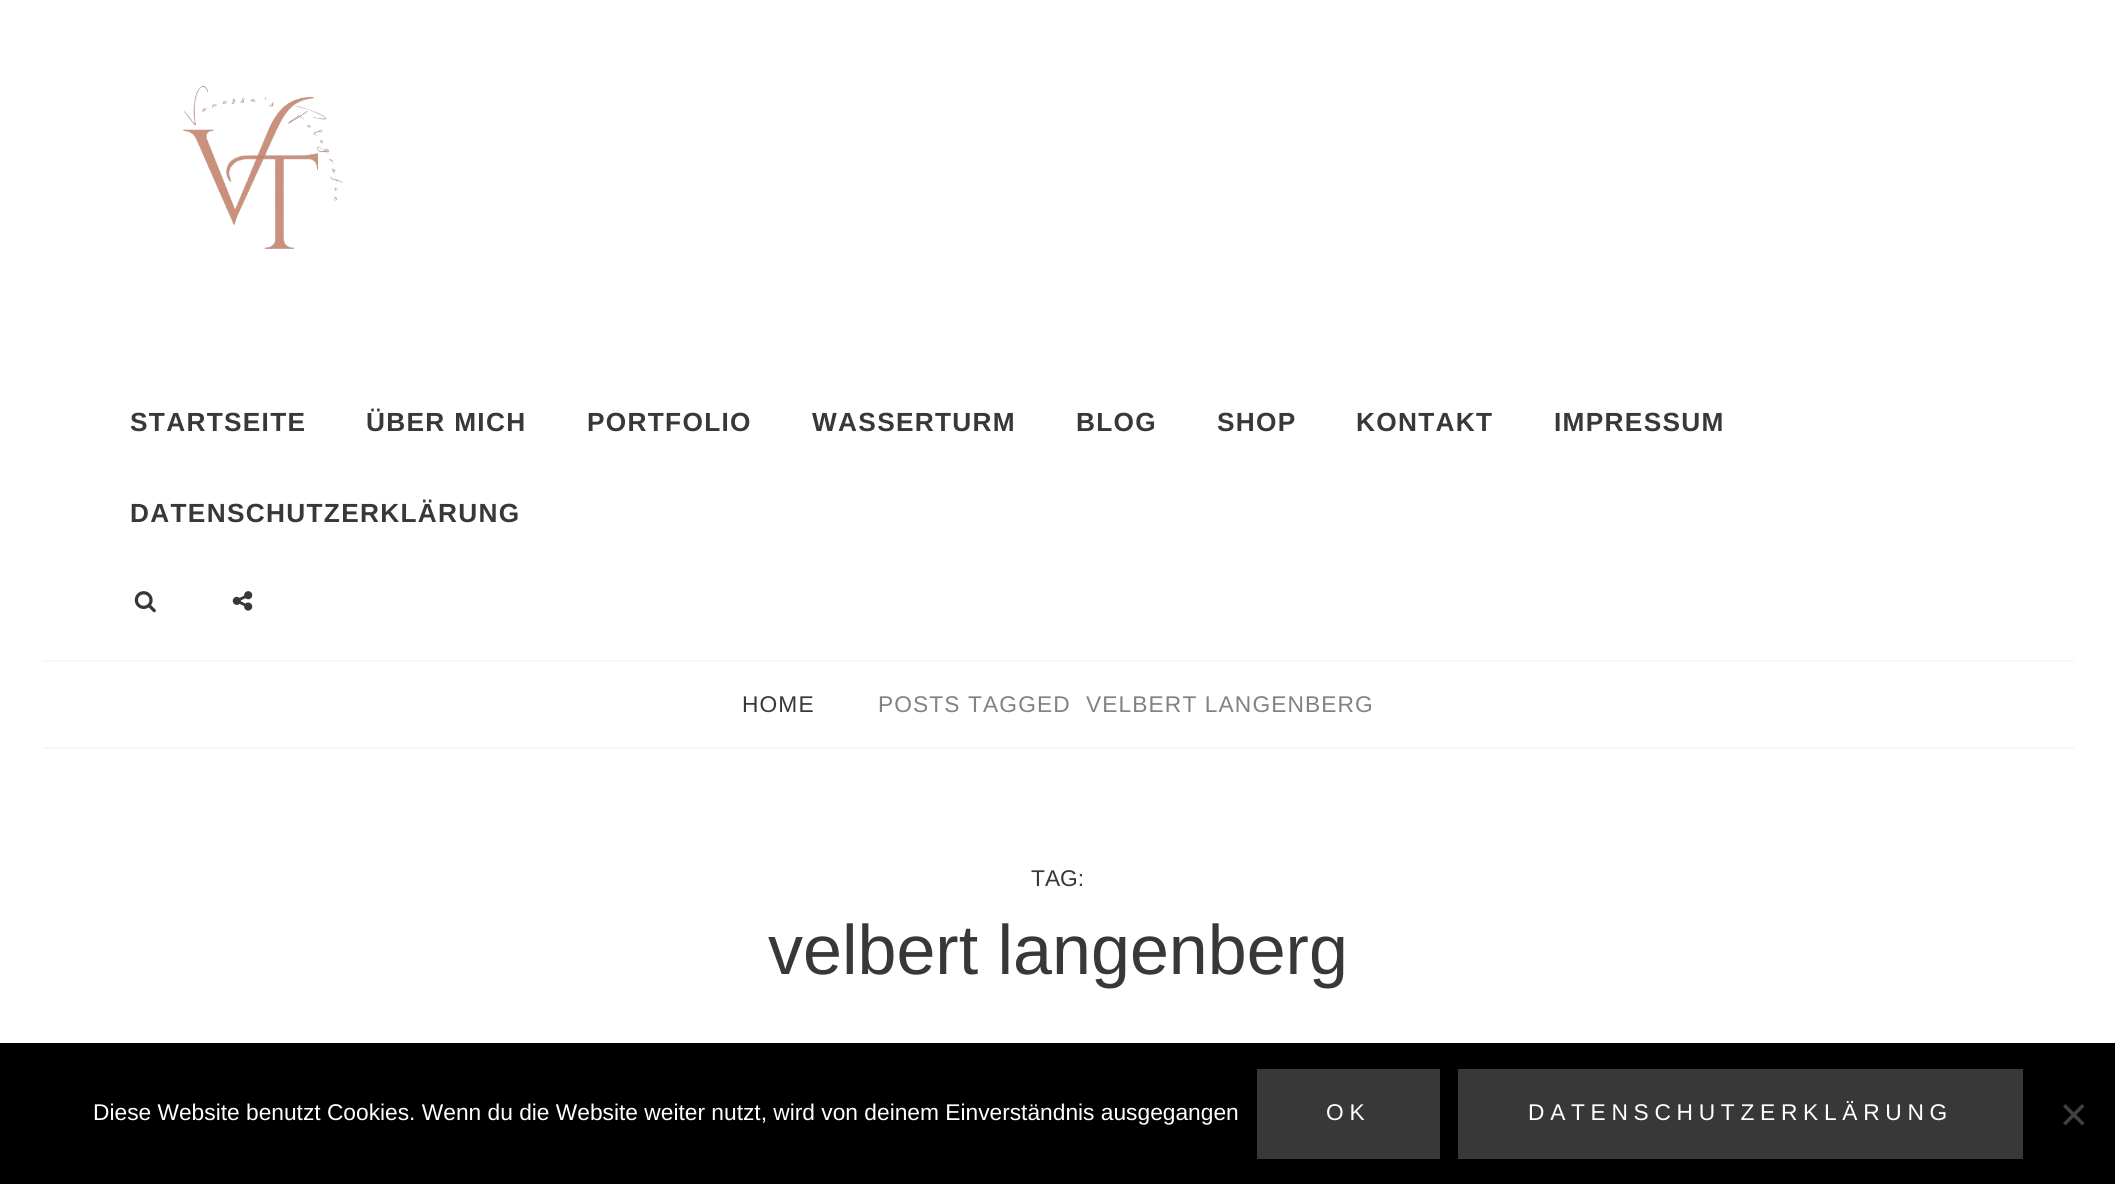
import math
import cairo


def use_color(cr, r, g, b):
  cr.set_source_rgb(r / 255, g / 255, b / 255)

def text(cr, x, y, s, family, size, color, bold=False, italic=False):
  cr.select_font_face(family, cairo.FONT_SLANT_ITALIC if italic else cairo.FONT_SLANT_NORMAL, cairo.FONT_WEIGHT_BOLD if bold else cairo.FONT_WEIGHT_NORMAL)
  cr.set_font_size(size)
  use_color(cr, *color)
  cr.move_to(x, y)
  cr.show_text(s)

def spaced_text(cr, x, y, s, letter, word):
  cr.move_to(x, y)
  for ch in s:
    cr.show_text(ch)
    cr.rel_move_to(letter + word * (ch == ' '), 0)

def box(cr, x, y, w, h, *color):
  use_color(cr, *color)
  cr.rectangle(x, y, w, h)
  cr.fill()

def picture(cr, path, x, y, w, h):
  cr.save()
  cr.set_source_surface(cairo.ImageSurface.create_from_png(path), x, y)
  cr.rectangle(x, y, w, h)
  cr.fill()
  cr.restore()

def draw(cr):
  use_color(cr, 255, 255, 255)
  cr.paint()
  box(cr, 42, 660, 2032, 2, 247, 247, 247)
  picture(cr, "img_01.png", 183, 85, 160, 164)
  picture(cr, "img_02.png", 134, 591, 22, 22)
  picture(cr, "img_03.png", 232, 591, 21, 20)
  box(cr, 42, 747, 2032, 2, 247, 247, 247)
  box(cr, 0, 1043, 2115, 141, 0, 0, 0)
  box(cr, 1257, 1069, 183, 90, 56, 56, 56)
  box(cr, 1458, 1069, 565, 90, 56, 56, 56)
  use_color(cr, 64, 64, 64)
  cr.new_path()
  cr.move_to(2082, 1104)
  cr.line_to(2084.5, 1106.5)
  cr.line_to(2065.5, 1125.5)
  cr.line_to(2063, 1123)
  cr.close_path()
  cr.fill()
  cr.new_path()
  cr.move_to(2063, 1106.5)
  cr.line_to(2065.5, 1104)
  cr.line_to(2084.5, 1123)
  cr.line_to(2082, 1125.5)
  cr.close_path()
  cr.fill()
  cr.select_font_face("Liberation Sans", cairo.FONT_SLANT_NORMAL, cairo.FONT_WEIGHT_BOLD)
  cr.set_font_size(26.25)
  use_color(cr, 56, 56, 56)
  spaced_text(cr, 130, 431, "STARTSEITE", 1.3, 0)
  spaced_text(cr, 366, 431, "ÜBER MICH", 1.3, 0)
  spaced_text(cr, 587, 431, "PORTFOLIO", 1.3, 0)
  spaced_text(cr, 812, 431, "WASSERTURM", 1.3, 0)
  spaced_text(cr, 1076, 431, "BLOG", 1.3, 0)
  spaced_text(cr, 1217, 431, "SHOP", 1.3, 0)
  spaced_text(cr, 1356, 431, "KONTAKT", 1.3, 0)
  spaced_text(cr, 1554, 431, "IMPRESSUM", 1.3, 0)
  spaced_text(cr, 130, 522, "DATENSCHUTZERKLÄRUNG", 1.3, 0)
  cr.select_font_face("Liberation Sans")
  cr.set_font_size(22.75)
  spaced_text(cr, 742, 712, "HOME", 1.1, 0)
  use_color(cr, 130, 130, 130)
  spaced_text(cr, 878, 712, "POSTS TAGGED", 1.1, 0)
  spaced_text(cr, 1086, 712, "VELBERT LANGENBERG", 1.1, 0)
  text(cr, 1031, 886, "TAG:", "Liberation Sans", 22.75, (56, 56, 56))
  text(cr, 768, 974, "velbert langenberg", "Liberation Sans", 70, (56, 56, 56))
  text(cr, 93, 1120, "Diese Website benutzt Cookies. Wenn du die Website weiter nutzt, wird von deinem Einverständnis ausgegangen", "Liberation Sans", 22.75, (255, 255, 255))
  spaced_text(cr, 1326, 1120, "OK", 5.7, 0)
  spaced_text(cr, 1528, 1120, "DATENSCHUTZERKLÄRUNG", 5.7, 0)


surface = cairo.ImageSurface(cairo.FORMAT_RGB24, 2115, 1184)
cr = cairo.Context(surface)
options = cairo.FontOptions()
options.set_hint_metrics(cairo.HINT_METRICS_OFF)
options.set_hint_style(cairo.HINT_STYLE_NONE)
cr.set_font_options(options)
cr.set_miter_limit(4)
draw(cr)
surface.write_to_png("out.png")
